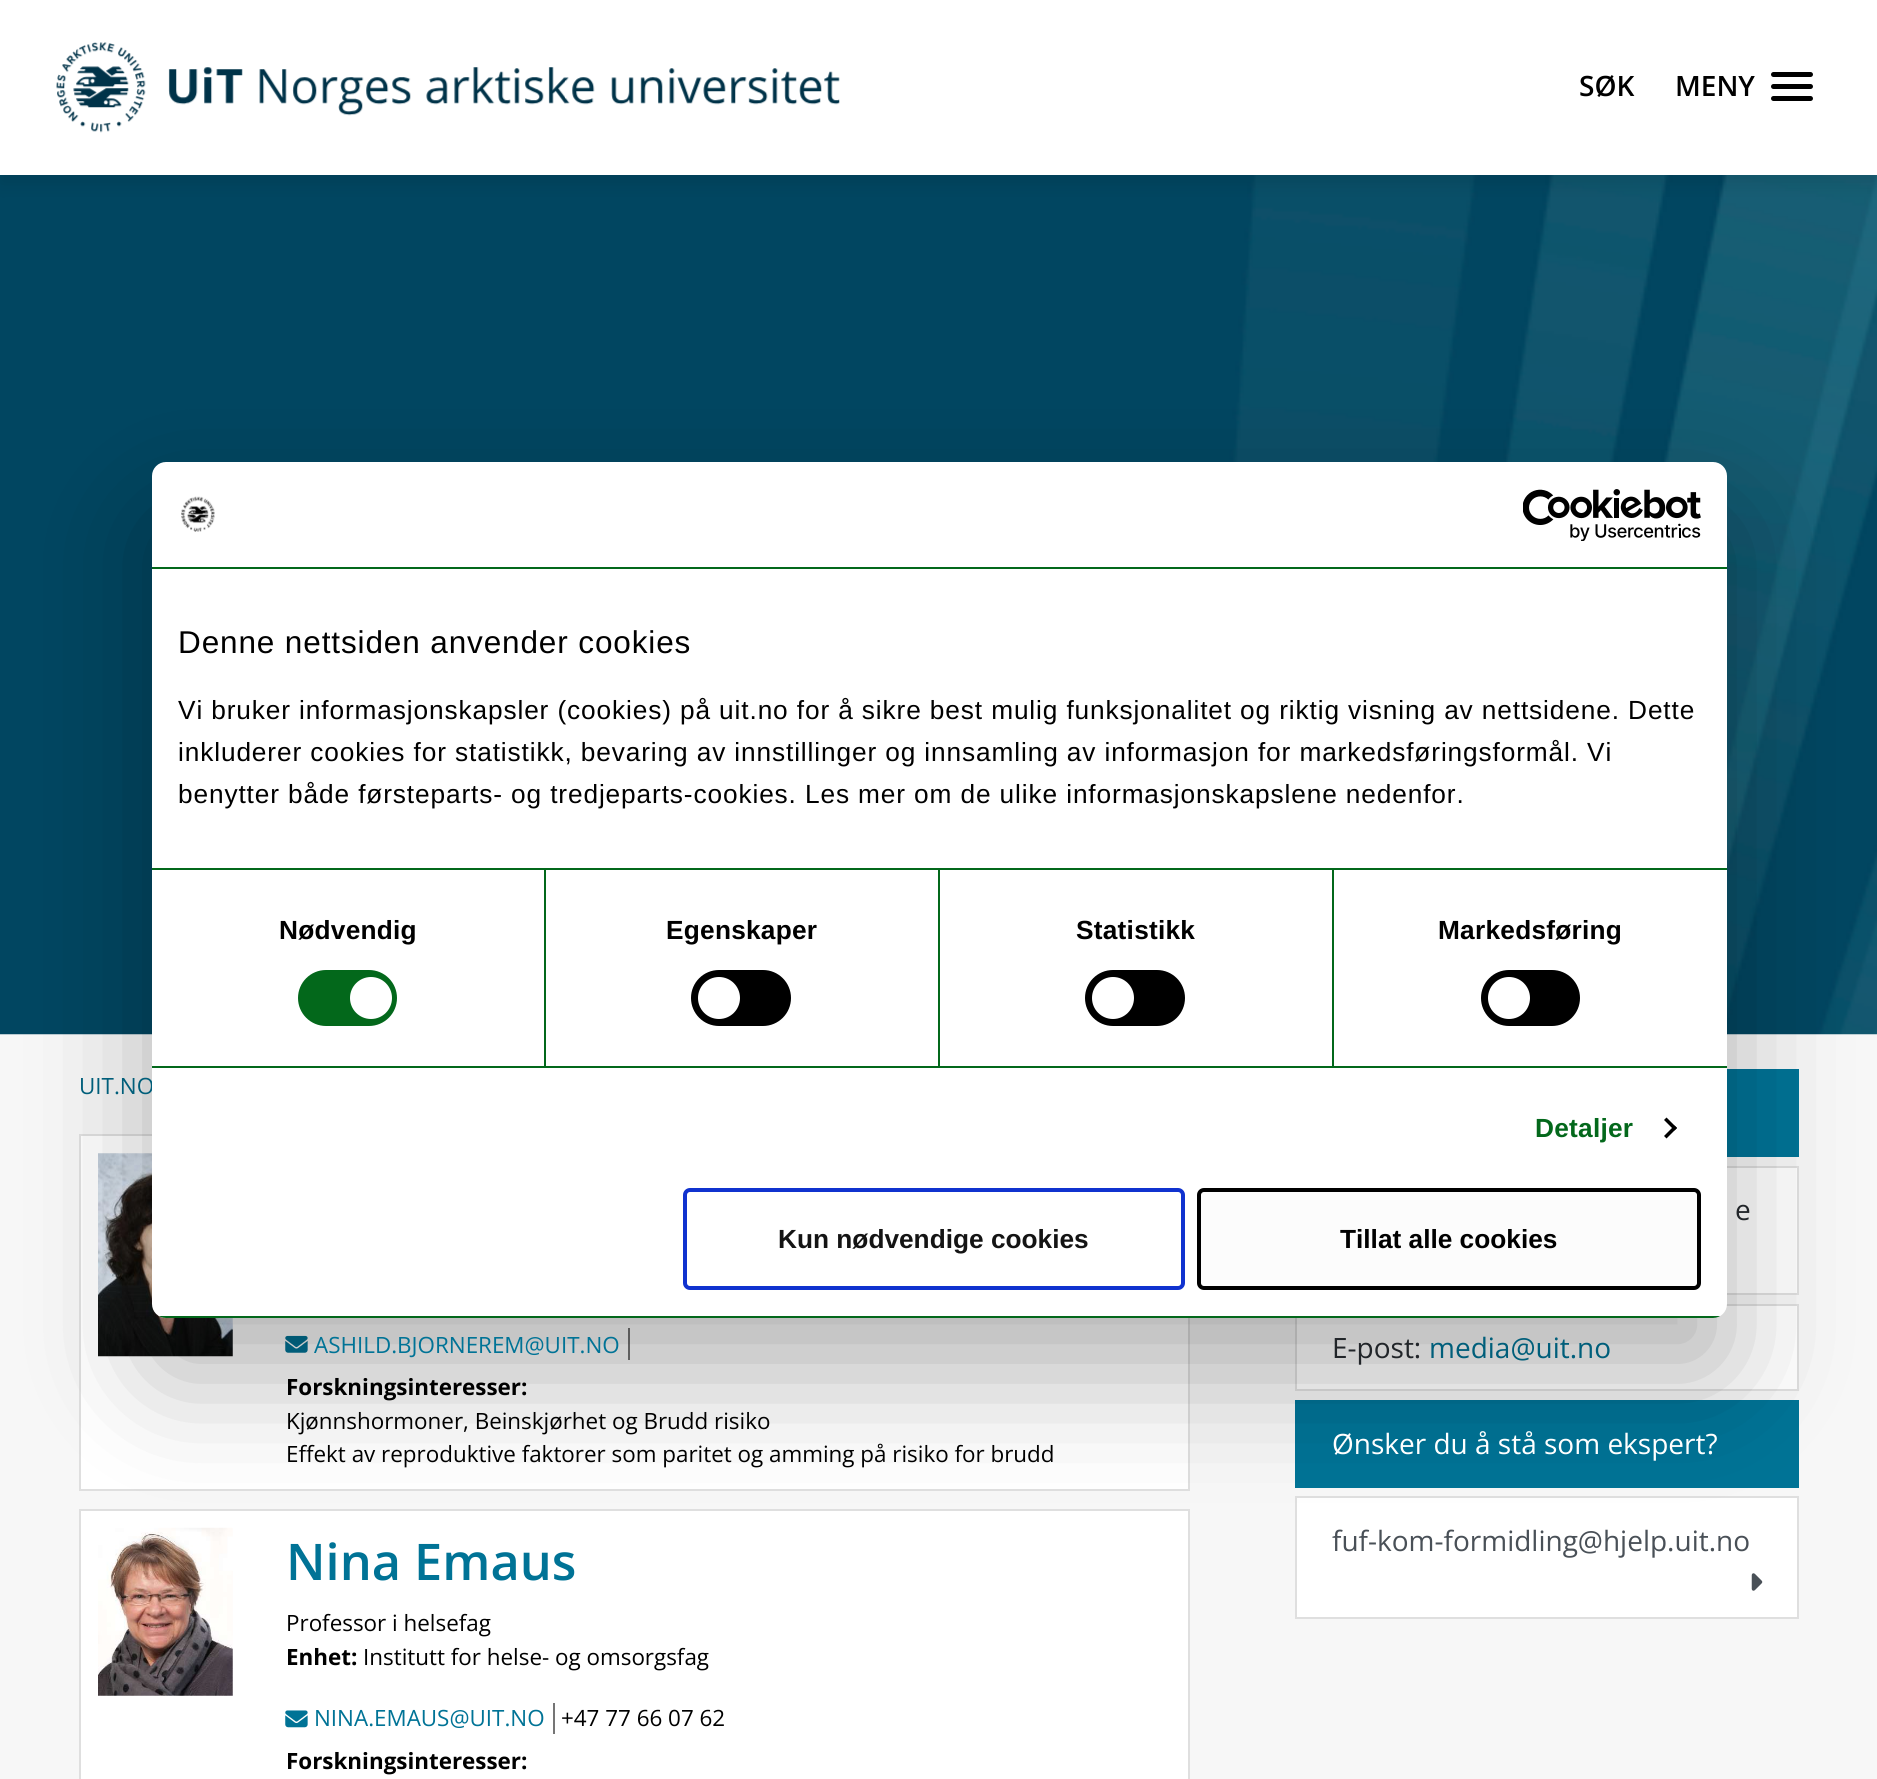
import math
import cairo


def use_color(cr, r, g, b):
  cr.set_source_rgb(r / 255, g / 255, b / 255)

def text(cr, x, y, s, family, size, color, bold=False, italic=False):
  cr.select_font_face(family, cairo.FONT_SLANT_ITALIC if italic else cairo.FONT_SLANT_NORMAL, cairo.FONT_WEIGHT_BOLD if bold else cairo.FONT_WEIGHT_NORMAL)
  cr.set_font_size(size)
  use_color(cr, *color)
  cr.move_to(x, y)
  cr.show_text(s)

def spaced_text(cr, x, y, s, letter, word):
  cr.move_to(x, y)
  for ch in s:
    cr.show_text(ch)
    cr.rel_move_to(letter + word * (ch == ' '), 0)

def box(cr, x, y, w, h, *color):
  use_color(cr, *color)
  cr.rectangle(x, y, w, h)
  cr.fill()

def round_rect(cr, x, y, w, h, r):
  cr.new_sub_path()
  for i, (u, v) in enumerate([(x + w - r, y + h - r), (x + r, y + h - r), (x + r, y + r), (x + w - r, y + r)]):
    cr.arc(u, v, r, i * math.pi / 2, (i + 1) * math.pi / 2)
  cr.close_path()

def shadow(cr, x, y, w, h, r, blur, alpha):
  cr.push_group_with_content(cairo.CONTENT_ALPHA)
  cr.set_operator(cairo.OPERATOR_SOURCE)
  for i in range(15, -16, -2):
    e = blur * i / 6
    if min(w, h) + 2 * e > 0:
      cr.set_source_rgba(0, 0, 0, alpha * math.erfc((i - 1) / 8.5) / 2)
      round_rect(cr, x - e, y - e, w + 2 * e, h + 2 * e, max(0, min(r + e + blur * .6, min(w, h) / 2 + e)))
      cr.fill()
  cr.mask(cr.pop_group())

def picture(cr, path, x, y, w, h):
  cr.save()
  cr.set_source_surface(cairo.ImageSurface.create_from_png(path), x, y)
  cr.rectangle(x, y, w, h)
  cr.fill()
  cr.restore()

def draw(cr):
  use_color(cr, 247, 247, 247)
  cr.paint()
  picture(cr, "img_04.png", 0, 175, 1877, 860)
  use_color(cr, 0, 0, 0)
  shadow(cr, 0, 9, 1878, 175, 0, 9, 0.1)
  box(cr, 0, 0, 1877, 175, 255, 255, 255)
  picture(cr, "img_01.png", 56, 42, 784, 91)
  use_color(cr, 0, 0, 0)
  round_rect(cr, 1771, 72, 42, 5, 2.5)
  cr.fill()
  round_rect(cr, 1771, 84, 42, 5, 2.5)
  cr.fill()
  round_rect(cr, 1771, 96, 42, 5, 2.5)
  cr.fill()
  use_color(cr, 255, 255, 255)
  cr.rectangle(80, 1135, 1109, 355)
  cr.fill_preserve()
  use_color(cr, 223, 223, 223)
  cr.stroke()
  picture(cr, "img_05.png", 98, 1153, 135, 204)
  box(cr, 628, 1328, 2, 32, 117, 117, 117)
  picture(cr, "img_06.png", 285, 1335, 23, 18)
  use_color(cr, 255, 255, 255)
  cr.rectangle(80, 1510, 1109, 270)
  cr.fill_preserve()
  use_color(cr, 223, 223, 223)
  cr.stroke()
  picture(cr, "img_07.png", 98, 1527, 135, 169)
  box(cr, 1727, 1069, 72, 88, 0, 115, 150)
  box(cr, 1727, 1168, 70, 125, 255, 255, 255)
  cr.rectangle(1296, 1167, 502, 127)
  use_color(cr, 223, 223, 223)
  cr.stroke()
  use_color(cr, 255, 255, 255)
  cr.rectangle(1296, 1305, 502, 85)
  cr.fill_preserve()
  use_color(cr, 223, 223, 223)
  cr.stroke()
  box(cr, 1295, 1400, 504, 88, 0, 115, 150)
  use_color(cr, 255, 255, 255)
  cr.rectangle(1296, 1497, 502, 121)
  cr.fill_preserve()
  use_color(cr, 223, 223, 223)
  cr.stroke()
  use_color(cr, 0, 0, 0)
  shadow(cr, 152, 518, 1575, 856, 14, 59.5, 0.3)
  box(cr, 553, 1703, 2, 31, 117, 117, 117)
  picture(cr, "img_08.png", 285, 1710, 23, 18)
  picture(cr, "img_09.png", 1751, 1573, 12, 18)
  text(cr, 1579, 96, "SØK", "Open Sans SemiBold", 28, (0, 0, 0))
  text(cr, 1675, 96, "MENY", "Open Sans SemiBold", 28, (0, 0, 0))
  text(cr, 79, 1094, "UIT.NO", "Open Sans", 22.4, (0, 94, 122))
  use_color(cr, 255, 255, 255)
  round_rect(cr, 152, 462, 1575, 856, 14)
  cr.fill()
  use_color(cr, 252, 252, 252)
  round_rect(cr, 1199, 1190, 500, 98, 5)
  cr.fill_preserve()
  use_color(cr, 0, 0, 0)
  cr.set_line_width(4)
  cr.stroke()
  text(cr, 1340, 1248, "Tillat alle cookies", "Liberation Sans", 26.25, (0, 0, 0), bold=True)
  round_rect(cr, 685, 1190, 498, 98, 5)
  use_color(cr, 16, 50, 207)
  cr.stroke()
  text(cr, 778, 1248, "Kun nødvendige cookies", "Liberation Sans", 26.25, (20, 20, 20), bold=True)
  cr.save()
  round_rect(cr, 152, 462, 1575, 856, 14)
  cr.clip()
  box(cr, 152, 1316, 1575, 2, 3, 104, 27)
  cr.restore()
  use_color(cr, 0, 0, 0)
  cr.new_path()
  cr.move_to(1666.5, 1117.5)
  cr.line_to(1677, 1128)
  cr.line_to(1674.5, 1130.5)
  cr.line_to(1664, 1120)
  cr.close_path()
  cr.fill()
  cr.new_path()
  cr.move_to(1674.5, 1125.5)
  cr.line_to(1677, 1128)
  cr.line_to(1666.5, 1138.5)
  cr.line_to(1664, 1136)
  cr.close_path()
  cr.fill()
  round_rect(cr, 1481, 970, 99, 56, 28)
  cr.fill()
  use_color(cr, 255, 255, 255)
  cr.arc(1509, 998, 21, 0, 2 * math.pi)
  cr.fill()
  use_color(cr, 0, 0, 0)
  round_rect(cr, 1085, 970, 100, 56, 28)
  cr.fill()
  use_color(cr, 255, 255, 255)
  cr.arc(1113, 998, 21, 0, 2 * math.pi)
  cr.fill()
  use_color(cr, 0, 0, 0)
  round_rect(cr, 691, 970, 100, 56, 28)
  cr.fill()
  use_color(cr, 255, 255, 255)
  cr.arc(719, 998, 21, 0, 2 * math.pi)
  cr.fill()
  use_color(cr, 3, 104, 27)
  round_rect(cr, 298, 970, 99, 56, 28)
  cr.fill()
  use_color(cr, 255, 255, 255)
  cr.arc(371, 998, 21, 0, 2 * math.pi)
  cr.fill()
  cr.select_font_face("Liberation Sans")
  use_color(cr, 0, 0, 0)
  spaced_text(cr, 178, 803, "benytter både førsteparts- og tredjeparts-cookies. Les mer om de ulike informasjonskapslene nedenfor.", 0.88, 0)
  spaced_text(cr, 178, 761, "inkluderer cookies for statistikk, bevaring av innstillinger og innsamling av informasjon for markedsføringsformål. Vi", 0.88, 0)
  spaced_text(cr, 178, 719, "Vi bruker informasjonskapsler (cookies) på uit.no for å sikre best mulig funksjonalitet og riktig visning av nettsidene. Dette", 0.88, 0)
  cr.set_font_size(31.5)
  spaced_text(cr, 178, 653, "Denne nettsiden anvender cookies", 0.88, 0)
  box(cr, 152, 868, 1575, 2, 3, 104, 27)
  cr.select_font_face("Liberation Sans", cairo.FONT_SLANT_NORMAL, cairo.FONT_WEIGHT_BOLD)
  cr.set_font_size(26.25)
  spaced_text(cr, 1535, 1137, "Detaljer", 0.25, 0)
  use_color(cr, 0, 0, 0)
  spaced_text(cr, 1438, 939, "Markedsføring", 0.25, 0)
  spaced_text(cr, 1076, 939, "Statistikk", 0.25, 0)
  box(cr, 1332, 870, 2, 196, 3, 104, 27)
  use_color(cr, 0, 0, 0)
  spaced_text(cr, 666, 939, "Egenskaper", 0.25, 0)
  box(cr, 938, 870, 2, 196, 3, 104, 27)
  use_color(cr, 0, 0, 0)
  spaced_text(cr, 279, 939, "Nødvendig", 0.25, 0)
  box(cr, 544, 870, 2, 196, 3, 104, 27)
  box(cr, 152, 1066, 1575, 2, 3, 104, 27)
  picture(cr, "img_03.png", 1523, 489, 178, 52)
  picture(cr, "img_02.png", 181, 496, 34, 36)
  box(cr, 152, 567, 1575, 2, 3, 104, 27)
  text(cr, 314, 1353, "ASHILD.BJORNEREM@UIT.NO", "Open Sans", 22.4, (0, 115, 150))
  text(cr, 286, 1395, "Forskningsinteresser:", "Open Sans", 22.4, (0, 0, 0), bold=True)
  text(cr, 286, 1429, "Kjønnshormoner, Beinskjørhet og Brudd risiko", "Open Sans", 22.4, (0, 0, 0))
  text(cr, 286, 1462, "Effekt av reproduktive faktorer som paritet og amming på risiko for brudd", "Open Sans", 22.4, (0, 0, 0))
  text(cr, 286, 1580, "Nina Emaus", "Open Sans SemiBold", 50.5, (0, 115, 150))
  text(cr, 286, 1631, "Professor i helsefag", "Open Sans", 22.4, (0, 0, 0))
  text(cr, 286, 1665, "Enhet:", "Open Sans", 22.4, (0, 0, 0), bold=True)
  text(cr, 363, 1665, "Institutt for helse- og omsorgsfag", "Open Sans", 22.4, (0, 0, 0))
  text(cr, 314, 1726, "NINA.EMAUS@UIT.NO", "Open Sans", 22.4, (0, 115, 150))
  text(cr, 561, 1726, "+47 77 66 07 62", "Open Sans", 22.4, (0, 0, 0))
  text(cr, 286, 1769, "Forskningsinteresser:", "Open Sans", 22.4, (0, 0, 0), bold=True)
  text(cr, 1735, 1220, "e", "Open Sans", 28, (33, 37, 41))
  text(cr, 1332, 1358, "E-post:", "Open Sans", 28, (33, 37, 41))
  text(cr, 1429, 1358, "media@uit.no", "Open Sans", 28, (0, 94, 122))
  text(cr, 1332, 1454, "Ønsker du å stå som ekspert?", "Open Sans", 28, (255, 255, 255))
  text(cr, 1332, 1551, "fuf-kom-formidling@hjelp.uit.no", "Open Sans", 28, (73, 80, 87))


surface = cairo.ImageSurface(cairo.FORMAT_RGB24, 1877, 1779)
cr = cairo.Context(surface)
options = cairo.FontOptions()
options.set_hint_metrics(cairo.HINT_METRICS_OFF)
options.set_hint_style(cairo.HINT_STYLE_NONE)
cr.set_font_options(options)
cr.set_miter_limit(4)
draw(cr)
surface.write_to_png("out.png")
